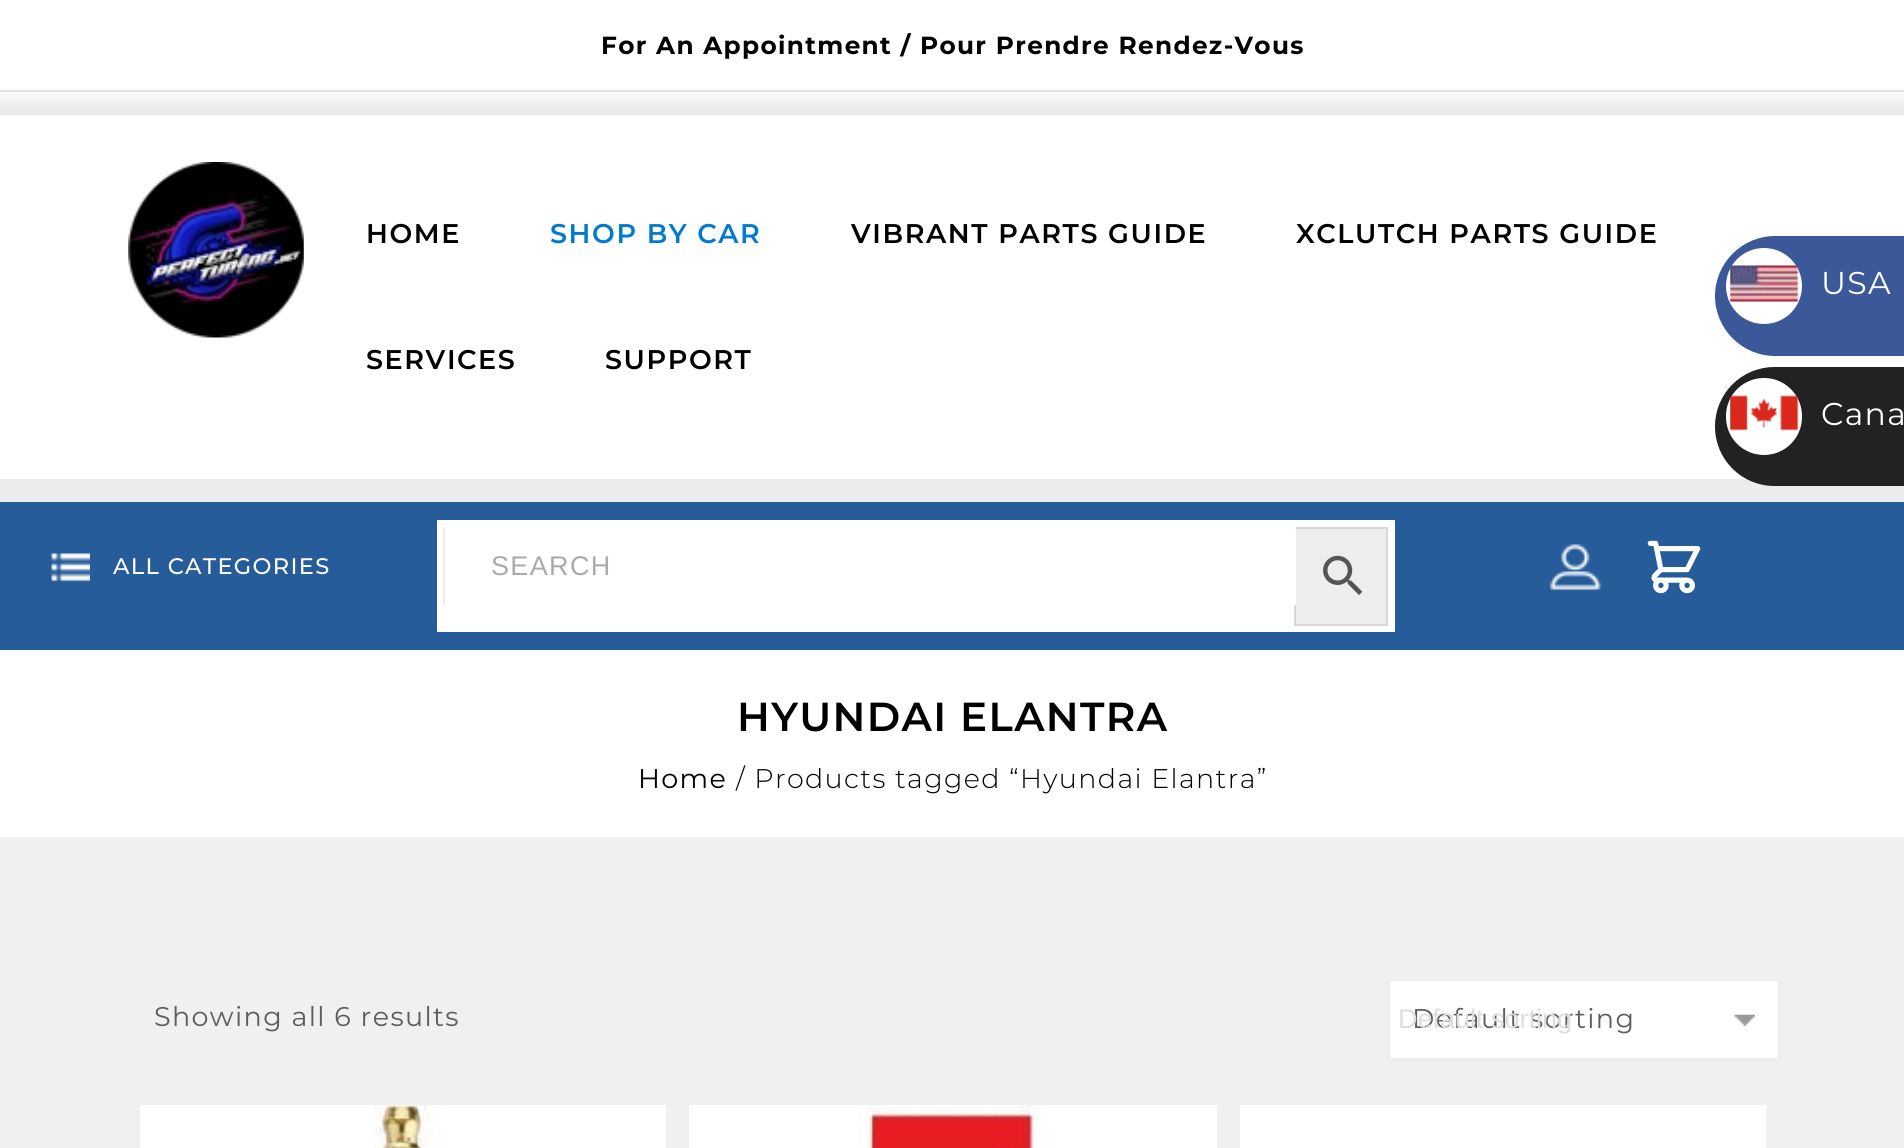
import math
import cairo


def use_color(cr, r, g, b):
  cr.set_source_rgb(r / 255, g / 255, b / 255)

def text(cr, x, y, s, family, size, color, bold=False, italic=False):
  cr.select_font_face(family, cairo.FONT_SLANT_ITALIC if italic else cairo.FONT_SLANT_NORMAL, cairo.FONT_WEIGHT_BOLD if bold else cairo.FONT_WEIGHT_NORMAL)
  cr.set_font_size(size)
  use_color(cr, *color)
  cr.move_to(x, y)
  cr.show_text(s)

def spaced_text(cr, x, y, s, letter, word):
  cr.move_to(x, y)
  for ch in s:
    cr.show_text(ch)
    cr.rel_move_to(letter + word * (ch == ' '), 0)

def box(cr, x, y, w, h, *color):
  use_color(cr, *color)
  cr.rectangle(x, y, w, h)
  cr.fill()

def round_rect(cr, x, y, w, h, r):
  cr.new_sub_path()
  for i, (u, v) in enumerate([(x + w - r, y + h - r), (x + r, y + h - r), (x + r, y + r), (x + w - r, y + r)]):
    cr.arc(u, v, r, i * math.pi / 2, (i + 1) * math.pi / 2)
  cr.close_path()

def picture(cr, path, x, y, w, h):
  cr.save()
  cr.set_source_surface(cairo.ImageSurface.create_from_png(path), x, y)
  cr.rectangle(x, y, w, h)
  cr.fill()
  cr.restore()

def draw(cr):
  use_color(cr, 240, 240, 240)
  cr.paint()
  box(cr, 0, 0, 1904, 90, 255, 255, 255)
  box(cr, 0, 90, 1904, 2, 226, 226, 226)
  box(cr, 0, 115, 1904, 364, 255, 255, 255)
  gradient = cairo.LinearGradient(953, 92, 953, 115)
  gradient.add_color_stop_rgba(0, 0.98, 0.98, 0.98, 1)
  gradient.add_color_stop_rgba(1, 0.906, 0.906, 0.906, 1)
  cr.set_source(gradient)
  cr.rectangle(0, 92, 1904, 23)
  cr.fill()
  picture(cr, "img_01.png", 128, 162, 176, 176)
  box(cr, 0, 502, 1904, 148, 37, 92, 153)
  box(cr, 0, 479, 1904, 23, 236, 236, 236)
  picture(cr, "img_02.png", 51, 553, 39, 29)
  box(cr, 437, 520, 958, 112, 255, 255, 255)
  use_color(cr, 237, 237, 237)
  cr.rectangle(1295, 528, 92, 97)
  cr.fill_preserve()
  use_color(cr, 216, 216, 216)
  cr.stroke()
  box(cr, 1294, 527, 2, 78, 255, 255, 255)
  box(cr, 443, 527, 2, 78, 237, 237, 237)
  picture(cr, "img_03.png", 1323, 555, 40, 40)
  picture(cr, "img_04.png", 1550, 544, 51, 47)
  picture(cr, "img_05.png", 1647, 540, 54, 54)
  box(cr, 0, 650, 1904, 187, 255, 255, 255)
  cr.rectangle(1389, 980, 390, 79)
  cr.fill_preserve()
  use_color(cr, 237, 237, 237)
  cr.stroke()
  picture(cr, "img_06.png", 1734, 1014, 21, 12)
  box(cr, 140, 1105, 526, 43, 255, 255, 255)
  picture(cr, "img_07.png", 373, 1105, 69, 43)
  box(cr, 689, 1105, 528, 43, 255, 255, 255)
  picture(cr, "img_08.png", 857, 1105, 192, 43)
  box(cr, 1240, 1105, 526, 43, 255, 255, 255)
  use_color(cr, 59, 89, 152)
  cr.new_path()
  cr.move_to(1775, 236)
  cr.line_to(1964, 236)
  cr.line_to(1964, 356)
  cr.line_to(1775, 356)
  cr.curve_to(1742, 356, 1715, 329, 1715, 296)
  cr.curve_to(1715, 263, 1742, 236, 1775, 236)
  cr.close_path()
  cr.fill()
  use_color(cr, 255, 255, 255)
  cr.arc(1764, 286, 38, 0, 2 * math.pi)
  cr.fill()
  picture(cr, "img_09.png", 1730, 265, 69, 37)
  use_color(cr, 34, 34, 34)
  cr.new_path()
  cr.move_to(1774.5, 367)
  cr.line_to(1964, 367)
  cr.line_to(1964, 486)
  cr.line_to(1774.5, 486)
  cr.curve_to(1741.5, 486, 1715, 459.5, 1715, 426.5)
  cr.curve_to(1715, 393.5, 1741.5, 367, 1774.5, 367)
  cr.close_path()
  cr.fill()
  use_color(cr, 255, 255, 255)
  round_rect(cr, 1726, 378, 76, 77, 38)
  cr.fill()
  picture(cr, "img_10.png", 1730, 395, 69, 36)
  cr.select_font_face("Montserrat", cairo.FONT_SLANT_NORMAL, cairo.FONT_WEIGHT_BOLD)
  cr.set_font_size(24.75)
  use_color(cr, 0, 0, 0)
  spaced_text(cr, 601, 54, "For An Appointment / Pour Prendre Rendez-Vous", 1.35, 0)
  cr.select_font_face("Montserrat SemiBold")
  cr.set_font_size(27)
  spaced_text(cr, 366, 243, "HOME", 1.6, 0)
  use_color(cr, 2, 123, 206)
  spaced_text(cr, 550, 243, "SHOP BY CAR", 1.6, 0)
  use_color(cr, 0, 0, 0)
  spaced_text(cr, 851, 243, "VIBRANT PARTS GUIDE", 1.6, 0)
  spaced_text(cr, 1296, 243, "XCLUTCH PARTS GUIDE", 1.6, 0)
  spaced_text(cr, 366, 369, "SERVICES", 1.6, 0)
  spaced_text(cr, 605, 369, "SUPPORT", 1.6, 0)
  cr.select_font_face("Montserrat Medium")
  cr.set_font_size(22.5)
  use_color(cr, 255, 255, 255)
  spaced_text(cr, 113, 574, "ALL CATEGORIES", 1.35, 0)
  cr.select_font_face("Liberation Sans")
  cr.set_font_size(27)
  use_color(cr, 170, 170, 170)
  spaced_text(cr, 491, 575, "SEARCH", 1.35, 0)
  cr.select_font_face("Montserrat SemiBold")
  cr.set_font_size(40.5)
  use_color(cr, 0, 0, 0)
  spaced_text(cr, 737, 731, "HYUNDAI ELANTRA", 1.35, 0)
  cr.select_font_face("Montserrat Thin")
  cr.set_font_size(27)
  spaced_text(cr, 638, 788, "Home", 1.35, 0)
  cr.select_font_face("Montserrat Light")
  spaced_text(cr, 736, 788, "/ Products tagged “Hyundai Elantra”", 1.35, 0)
  cr.select_font_face("Montserrat Thin")
  use_color(cr, 93, 93, 93)
  spaced_text(cr, 154, 1026, "Showing all 6 results", 1.35, 0)
  spaced_text(cr, 1412, 1028, "Default sorting", 1.35, 0)
  text(cr, 1398, 1028, "Default sorting", "Liberation Sans", 27, (222, 222, 222))
  cr.select_font_face("Montserrat Thin")
  cr.set_font_size(31.5)
  use_color(cr, 255, 255, 255)
  spaced_text(cr, 1821, 294, "USA", 1.35, 0)
  spaced_text(cr, 1821, 425, "Cana", 1.35, 0)


surface = cairo.ImageSurface(cairo.FORMAT_RGB24, 1904, 1148)
cr = cairo.Context(surface)
options = cairo.FontOptions()
options.set_hint_metrics(cairo.HINT_METRICS_OFF)
options.set_hint_style(cairo.HINT_STYLE_NONE)
cr.set_font_options(options)
cr.set_miter_limit(4)
draw(cr)
surface.write_to_png("out.png")
